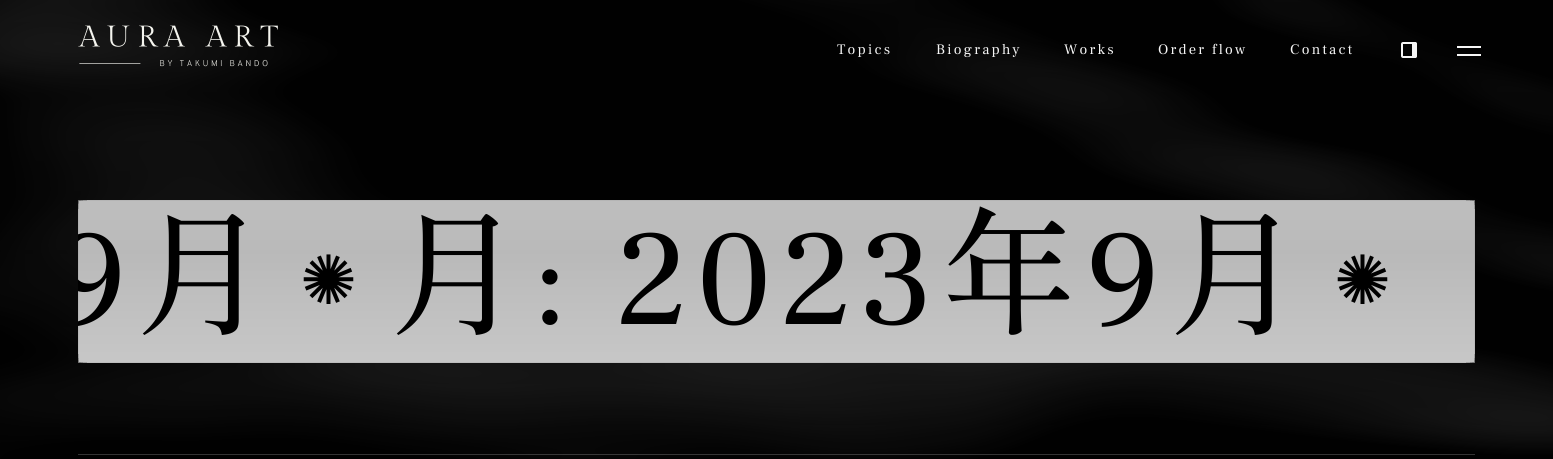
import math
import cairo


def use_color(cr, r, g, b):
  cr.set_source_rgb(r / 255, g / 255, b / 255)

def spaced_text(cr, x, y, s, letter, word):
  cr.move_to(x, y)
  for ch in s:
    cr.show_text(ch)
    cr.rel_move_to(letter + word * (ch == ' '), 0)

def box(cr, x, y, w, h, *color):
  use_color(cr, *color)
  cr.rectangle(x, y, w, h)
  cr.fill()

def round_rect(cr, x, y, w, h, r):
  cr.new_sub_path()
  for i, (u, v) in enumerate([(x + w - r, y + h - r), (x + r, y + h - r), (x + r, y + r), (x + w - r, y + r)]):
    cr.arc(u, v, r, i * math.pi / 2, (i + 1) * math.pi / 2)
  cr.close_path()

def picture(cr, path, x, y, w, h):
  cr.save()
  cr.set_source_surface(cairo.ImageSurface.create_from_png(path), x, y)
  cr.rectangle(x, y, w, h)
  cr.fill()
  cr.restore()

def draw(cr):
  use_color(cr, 255, 255, 255)
  cr.paint()
  picture(cr, "img_01.png", 0, 0, 1553, 459)
  picture(cr, "img_02.png", 78, 25, 200, 42)
  round_rect(cr, 1402, 43, 14, 14, 1)
  use_color(cr, 246, 246, 246)
  cr.stroke()
  cr.new_path()
  cr.move_to(1412, 42)
  cr.line_to(1415, 42)
  cr.curve_to(1416, 42, 1417, 43, 1417, 44)
  cr.line_to(1417, 56)
  cr.curve_to(1417, 57, 1416, 58, 1415, 58)
  cr.line_to(1412, 58)
  cr.close_path()
  cr.fill()
  box(cr, 1457, 46, 24, 2, 246, 246, 246)
  box(cr, 1457, 54, 24, 2, 246, 246, 246)
  cr.set_source_rgba(1, 1, 1, 0.2)
  cr.rectangle(78, 454, 1397, 1)
  cr.fill()
  cr.select_font_face("Frank Ruhl Libre")
  cr.set_font_size(14.5)
  use_color(cr, 246, 246, 246)
  spaced_text(cr, 837, 54, "Topics", 2.25, 0)
  spaced_text(cr, 936, 54, "Biography", 2.25, 0)
  spaced_text(cr, 1064, 54, "Works", 2.25, 0)
  spaced_text(cr, 1158, 54, "Order flow", 2.25, 0)
  spaced_text(cr, 1290, 54, "Contact", 2.25, 0)
  cr.save()
  cr.rectangle(78, 200, 1397, 163)
  cr.clip()
  cr.set_font_size(136)
  use_color(cr, 0, 0, 0)
  spaced_text(cr, 51, 324, "9", 6.75, 0)
  cr.restore()
  cr.select_font_face("Shippori Mincho Medium")
  cr.set_font_size(136)
  use_color(cr, 0, 0, 0)
  spaced_text(cr, 134, 324, "月", 6.75, 0)
  cr.select_font_face("DejaVu Sans")
  cr.set_font_size(68)
  spaced_text(cr, 300, 304, "✺", 6.75, 0)
  cr.select_font_face("Shippori Mincho Medium")
  cr.set_font_size(136)
  spaced_text(cr, 388, 324, "月", 6.75, 0)
  cr.select_font_face("Frank Ruhl Libre")
  spaced_text(cr, 531, 324, ": 2023", 6.75, 0)
  cr.select_font_face("Shippori Mincho Medium")
  spaced_text(cr, 941, 324, "年", 6.75, 0)
  cr.select_font_face("Frank Ruhl Libre")
  spaced_text(cr, 1084, 324, "9", 6.75, 0)
  cr.select_font_face("Shippori Mincho Medium")
  spaced_text(cr, 1167, 324, "月", 6.75, 0)
  cr.select_font_face("DejaVu Sans")
  cr.set_font_size(68)
  spaced_text(cr, 1334, 304, "✺", 6.75, 0)


surface = cairo.ImageSurface(cairo.FORMAT_RGB24, 1553, 459)
cr = cairo.Context(surface)
options = cairo.FontOptions()
options.set_hint_metrics(cairo.HINT_METRICS_OFF)
options.set_hint_style(cairo.HINT_STYLE_NONE)
cr.set_font_options(options)
cr.set_miter_limit(4)
draw(cr)
surface.write_to_png("out.png")
